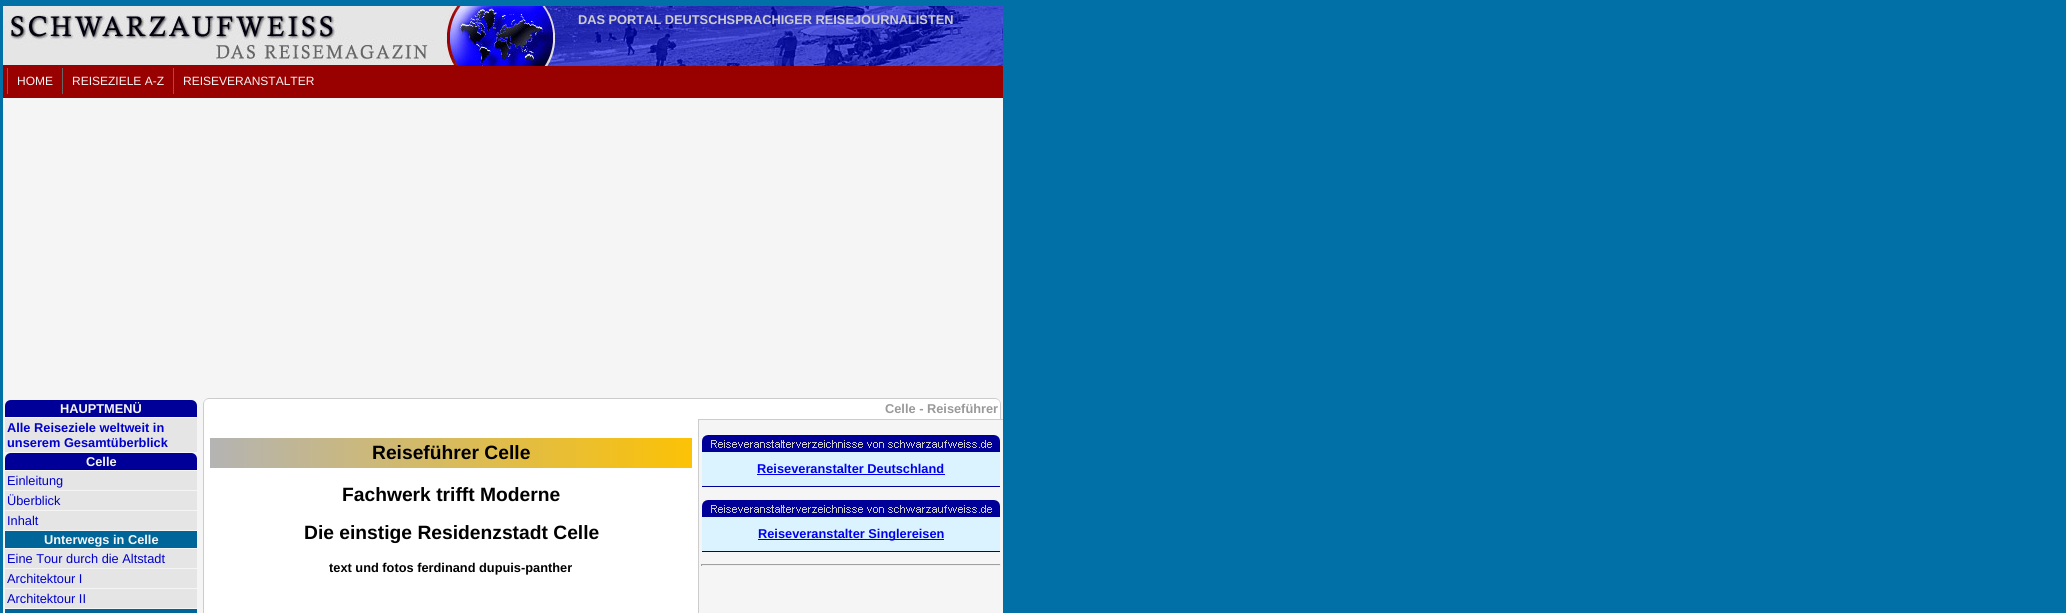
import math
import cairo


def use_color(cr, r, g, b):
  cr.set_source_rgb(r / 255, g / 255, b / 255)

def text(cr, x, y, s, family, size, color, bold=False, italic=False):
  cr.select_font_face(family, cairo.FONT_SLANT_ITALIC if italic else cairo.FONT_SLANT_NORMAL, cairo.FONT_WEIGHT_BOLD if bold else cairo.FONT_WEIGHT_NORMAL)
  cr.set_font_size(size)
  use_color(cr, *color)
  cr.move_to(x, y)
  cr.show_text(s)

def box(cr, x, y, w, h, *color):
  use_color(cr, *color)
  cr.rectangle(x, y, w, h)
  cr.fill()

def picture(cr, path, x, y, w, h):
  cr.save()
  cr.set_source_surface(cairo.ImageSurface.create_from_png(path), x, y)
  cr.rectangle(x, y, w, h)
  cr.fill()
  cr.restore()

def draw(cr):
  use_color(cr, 0, 112, 166)
  cr.paint()
  box(cr, 3, 98, 1000, 515, 245, 245, 245)
  picture(cr, "img_01.png", 3, 6, 1000, 60)
  box(cr, 3, 66, 1000, 32, 153, 0, 0)
  box(cr, 7, 68, 1, 26, 102, 102, 102)
  box(cr, 62, 68, 1, 26, 102, 102, 102)
  box(cr, 173, 68, 1, 26, 102, 102, 102)
  use_color(cr, 0, 0, 153)
  cr.new_path()
  cr.move_to(11, 400)
  cr.line_to(191, 400)
  cr.curve_to(194.5, 400, 197, 402.5, 197, 406)
  cr.line_to(197, 418)
  cr.line_to(5, 418)
  cr.line_to(5, 406)
  cr.curve_to(5, 402.5, 7.5, 400, 11, 400)
  cr.close_path()
  cr.fill()
  box(cr, 5, 417, 192, 1, 245, 245, 245)
  box(cr, 5, 418, 192, 34, 229, 229, 229)
  use_color(cr, 0, 0, 153)
  cr.new_path()
  cr.move_to(11, 453)
  cr.line_to(191, 453)
  cr.curve_to(194.5, 453, 197, 455.5, 197, 459)
  cr.line_to(197, 471)
  cr.line_to(5, 471)
  cr.line_to(5, 459)
  cr.curve_to(5, 455.5, 7.5, 453, 11, 453)
  cr.close_path()
  cr.fill()
  box(cr, 5, 470, 192, 1, 245, 245, 245)
  box(cr, 5, 471, 192, 19, 229, 229, 229)
  box(cr, 5, 491, 192, 19, 229, 229, 229)
  box(cr, 5, 511, 192, 19, 229, 229, 229)
  box(cr, 5, 531, 192, 17, 0, 102, 153)
  box(cr, 5, 549, 192, 19, 229, 229, 229)
  box(cr, 5, 569, 192, 19, 229, 229, 229)
  box(cr, 5, 589, 192, 19, 229, 229, 229)
  box(cr, 5, 609, 192, 4, 0, 102, 153)
  use_color(cr, 255, 255, 255)
  cr.new_path()
  cr.move_to(209, 398)
  cr.line_to(995, 398)
  cr.curve_to(998.5, 398, 1001, 400.5, 1001, 404)
  cr.line_to(1001, 419)
  cr.line_to(203, 419)
  cr.line_to(203, 404)
  cr.curve_to(203, 400.5, 205.5, 398, 209, 398)
  cr.close_path()
  cr.fill()
  use_color(cr, 204, 204, 204)
  cr.set_fill_rule(cairo.FILL_RULE_EVEN_ODD)
  cr.new_path()
  cr.move_to(209, 398)
  cr.line_to(995, 398)
  cr.curve_to(998, 398, 1001, 401, 1001, 404)
  cr.line_to(1001, 419)
  cr.line_to(203, 419)
  cr.line_to(203, 404)
  cr.curve_to(203, 401, 206, 398, 209, 398)
  cr.close_path()
  cr.move_to(209, 399)
  cr.line_to(995, 399)
  cr.curve_to(998, 399, 1000, 401, 1000, 404)
  cr.line_to(1000, 419)
  cr.line_to(204, 419)
  cr.line_to(204, 404)
  cr.curve_to(204, 401, 206, 399, 209, 399)
  cr.close_path()
  cr.fill()
  box(cr, 204, 419, 494, 194, 255, 255, 255)
  use_color(cr, 204, 204, 204)
  cr.new_path()
  cr.move_to(203, 419)
  cr.line_to(699, 419)
  cr.line_to(699, 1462)
  cr.curve_to(699, 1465, 696, 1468, 693, 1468)
  cr.line_to(209, 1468)
  cr.curve_to(206, 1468, 203, 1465, 203, 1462)
  cr.close_path()
  cr.move_to(204, 419)
  cr.line_to(698, 419)
  cr.line_to(698, 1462)
  cr.curve_to(698, 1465, 696, 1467, 693, 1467)
  cr.line_to(209, 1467)
  cr.curve_to(206, 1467, 204, 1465, 204, 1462)
  cr.close_path()
  cr.fill()
  picture(cr, "img_02.png", 210, 438, 482, 30)
  box(cr, 699, 419, 304, 1, 204, 204, 204)
  picture(cr, "img_03.png", 702, 435, 298, 51)
  box(cr, 702, 486, 298, 1, 0, 0, 153)
  box(cr, 757, 474, 188, 1, 0, 0, 238)
  picture(cr, "img_03.png", 702, 500, 298, 51)
  box(cr, 702, 551, 298, 1, 0, 0, 153)
  box(cr, 758, 539, 186, 1, 0, 0, 238)
  box(cr, 701, 564, 300, 1, 159, 159, 159)
  box(cr, 1000, 564, 1, 2, 238, 238, 238)
  box(cr, 701, 565, 300, 1, 238, 238, 238)
  box(cr, 701, 564, 1, 2, 159, 159, 159)
  text(cr, 578, 24, "DAS PORTAL DEUTSCHSPRACHIGER REISEJOURNALISTEN", "Liberation Sans", 12.8, (204, 204, 204), bold=True)
  text(cr, 17, 85, "HOME", "Liberation Sans", 12, (245, 245, 245))
  text(cr, 72, 85, "REISEZIELE A-Z", "Liberation Sans", 12, (245, 245, 245))
  text(cr, 183, 85, "REISEVERANSTALTER", "Liberation Sans", 12, (245, 245, 245))
  text(cr, 60, 413, "HAUPTMENÜ", "Liberation Sans", 12.8, (245, 245, 245), bold=True)
  text(cr, 7, 432, "Alle Reiseziele weltweit in", "Liberation Sans", 12.8, (0, 0, 204), bold=True)
  text(cr, 7, 447, "unserem Gesamtüberblick", "Liberation Sans", 12.8, (0, 0, 204), bold=True)
  text(cr, 86, 466, "Celle", "Liberation Sans", 12.8, (245, 245, 245), bold=True)
  text(cr, 7, 485, "Einleitung", "Liberation Sans", 12.8, (0, 0, 204))
  text(cr, 7, 505, "Überblick", "Liberation Sans", 12.8, (0, 0, 204))
  text(cr, 7, 525, "Inhalt", "Liberation Sans", 12.8, (0, 0, 204))
  text(cr, 44, 544, "Unterwegs in Celle", "Liberation Sans", 12.8, (245, 245, 245), bold=True)
  text(cr, 7, 563, "Eine Tour durch die Altstadt", "Liberation Sans", 12.8, (0, 0, 204))
  text(cr, 7, 583, "Architektour I", "Liberation Sans", 12.8, (0, 0, 204))
  text(cr, 7, 603, "Architektour II", "Liberation Sans", 12.8, (0, 0, 204))
  text(cr, 885, 413, "Celle - Reiseführer", "Liberation Sans", 12.8, (153, 153, 153), bold=True)
  text(cr, 372, 459, "Reiseführer Celle", "Liberation Sans", 19.25, (0, 0, 0), bold=True)
  text(cr, 342, 501, "Fachwerk trifft Moderne", "Liberation Sans", 19.25, (0, 0, 0), bold=True)
  text(cr, 304, 539, "Die einstige Residenzstadt Celle", "Liberation Sans", 19.25, (0, 0, 0), bold=True)
  text(cr, 329, 572, "text und fotos ferdinand dupuis-panther", "Liberation Sans", 12.8, (0, 0, 0), bold=True)
  text(cr, 757, 473, "Reiseveranstalter Deutschland", "Liberation Sans", 12.8, (0, 0, 238), bold=True)
  text(cr, 758, 538, "Reiseveranstalter Singlereisen", "Liberation Sans", 12.8, (0, 0, 238), bold=True)


surface = cairo.ImageSurface(cairo.FORMAT_RGB24, 2066, 613)
cr = cairo.Context(surface)
options = cairo.FontOptions()
options.set_hint_metrics(cairo.HINT_METRICS_OFF)
options.set_hint_style(cairo.HINT_STYLE_NONE)
cr.set_font_options(options)
cr.set_miter_limit(4)
draw(cr)
surface.write_to_png("out.png")
